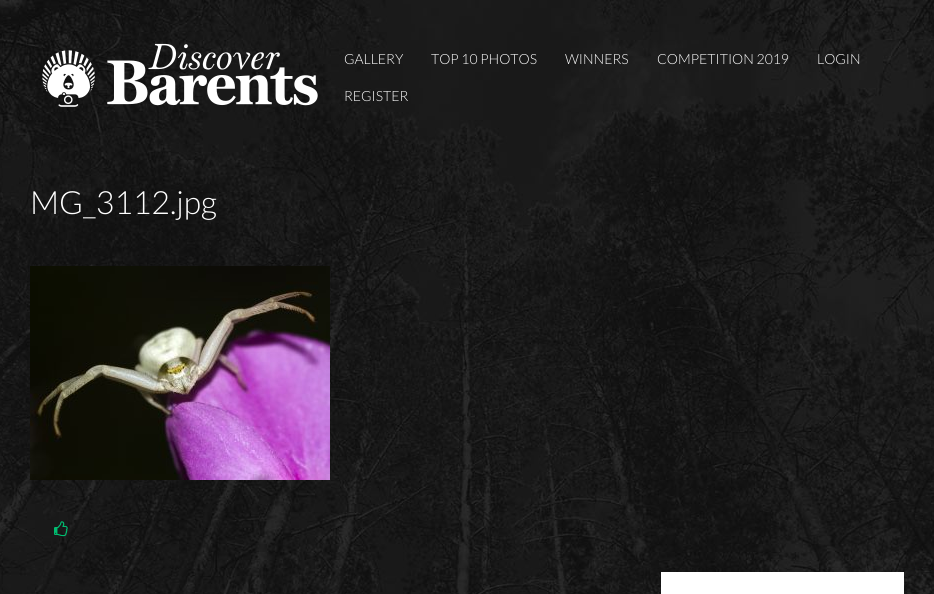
import math
import cairo


def use_color(cr, r, g, b):
  cr.set_source_rgb(r / 255, g / 255, b / 255)

def text(cr, x, y, s, family, size, color, bold=False, italic=False):
  cr.select_font_face(family, cairo.FONT_SLANT_ITALIC if italic else cairo.FONT_SLANT_NORMAL, cairo.FONT_WEIGHT_BOLD if bold else cairo.FONT_WEIGHT_NORMAL)
  cr.set_font_size(size)
  use_color(cr, *color)
  cr.move_to(x, y)
  cr.show_text(s)

def box(cr, x, y, w, h, *color):
  use_color(cr, *color)
  cr.rectangle(x, y, w, h)
  cr.fill()

def picture(cr, path, x, y, w, h):
  cr.save()
  cr.set_source_surface(cairo.ImageSurface.create_from_png(path), x, y)
  cr.rectangle(x, y, w, h)
  cr.fill()
  cr.restore()

def draw(cr):
  use_color(cr, 255, 255, 255)
  cr.paint()
  picture(cr, "img_01.png", 0, 0, 934, 594)
  picture(cr, "img_02.png", 42, 43, 276, 64)
  picture(cr, "img_03.png", 30, 266, 300, 214)
  picture(cr, "img_04.png", 54, 521, 14, 16)
  box(cr, 661, 572, 243, 22, 255, 255, 255)
  text(cr, 344, 64, "GALLERY", "Lato Light", 14, (255, 255, 255))
  text(cr, 431, 64, "TOP 10 PHOTOS", "Lato Light", 14, (255, 255, 255))
  text(cr, 565, 64, "WINNERS", "Lato Light", 14, (255, 255, 255))
  text(cr, 657, 64, "COMPETITION 2019", "Lato Light", 14, (255, 255, 255))
  text(cr, 817, 64, "LOGIN", "Lato Light", 14, (255, 255, 255))
  text(cr, 344, 101, "REGISTER", "Lato Light", 14, (255, 255, 255))
  text(cr, 30, 214, "MG_3112.jpg", "Lato Light", 32, (255, 255, 255))


surface = cairo.ImageSurface(cairo.FORMAT_RGB24, 934, 594)
cr = cairo.Context(surface)
options = cairo.FontOptions()
options.set_hint_metrics(cairo.HINT_METRICS_OFF)
options.set_hint_style(cairo.HINT_STYLE_NONE)
cr.set_font_options(options)
cr.set_miter_limit(4)
draw(cr)
surface.write_to_png("out.png")
